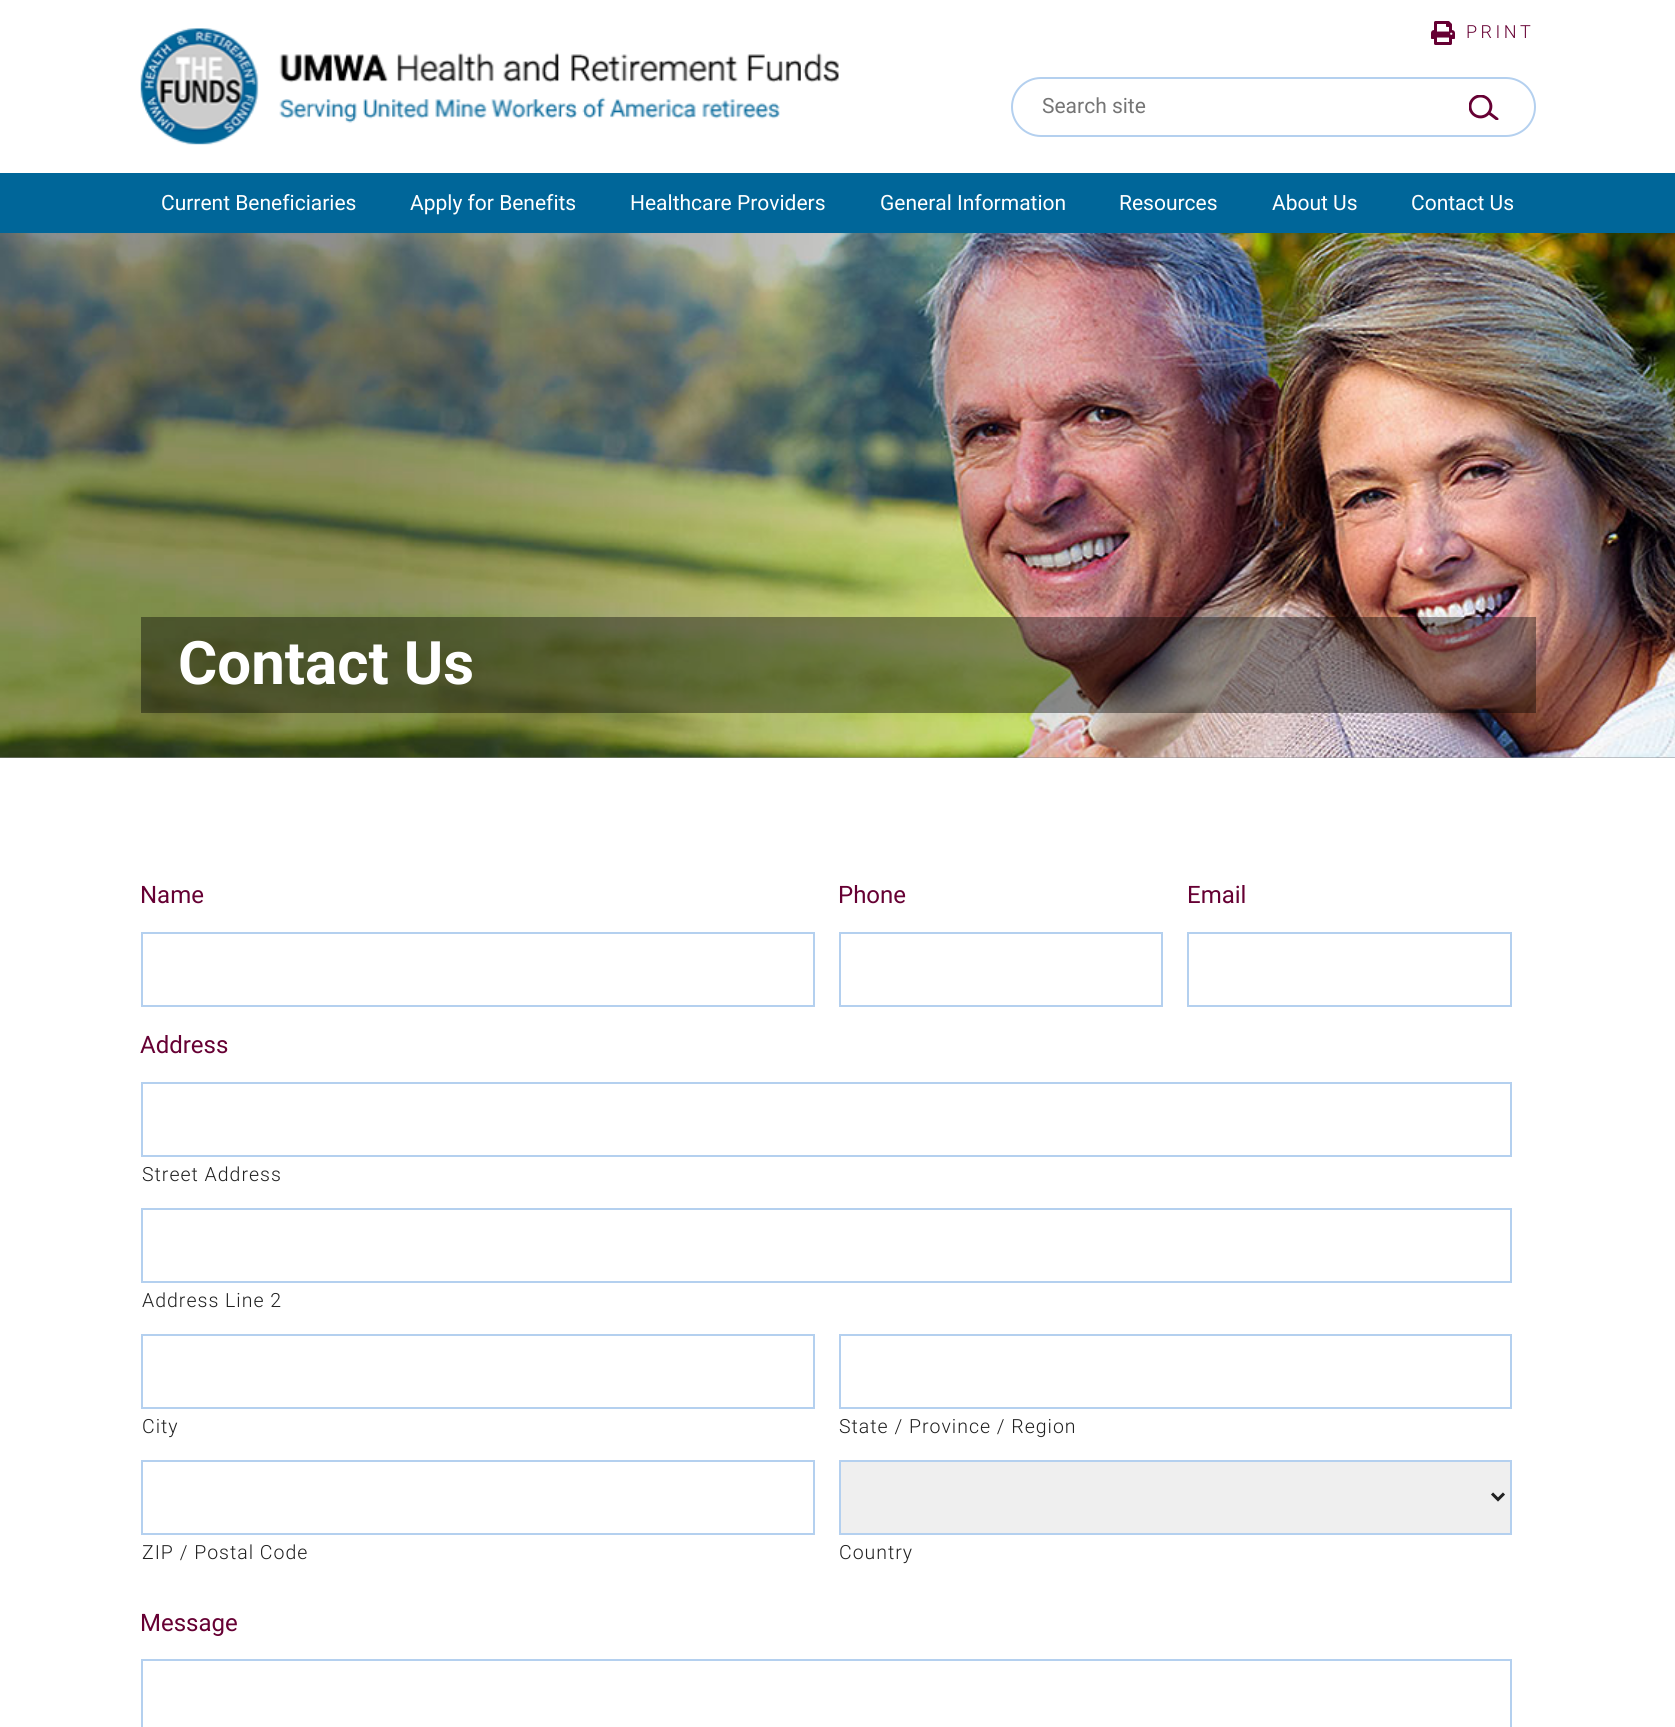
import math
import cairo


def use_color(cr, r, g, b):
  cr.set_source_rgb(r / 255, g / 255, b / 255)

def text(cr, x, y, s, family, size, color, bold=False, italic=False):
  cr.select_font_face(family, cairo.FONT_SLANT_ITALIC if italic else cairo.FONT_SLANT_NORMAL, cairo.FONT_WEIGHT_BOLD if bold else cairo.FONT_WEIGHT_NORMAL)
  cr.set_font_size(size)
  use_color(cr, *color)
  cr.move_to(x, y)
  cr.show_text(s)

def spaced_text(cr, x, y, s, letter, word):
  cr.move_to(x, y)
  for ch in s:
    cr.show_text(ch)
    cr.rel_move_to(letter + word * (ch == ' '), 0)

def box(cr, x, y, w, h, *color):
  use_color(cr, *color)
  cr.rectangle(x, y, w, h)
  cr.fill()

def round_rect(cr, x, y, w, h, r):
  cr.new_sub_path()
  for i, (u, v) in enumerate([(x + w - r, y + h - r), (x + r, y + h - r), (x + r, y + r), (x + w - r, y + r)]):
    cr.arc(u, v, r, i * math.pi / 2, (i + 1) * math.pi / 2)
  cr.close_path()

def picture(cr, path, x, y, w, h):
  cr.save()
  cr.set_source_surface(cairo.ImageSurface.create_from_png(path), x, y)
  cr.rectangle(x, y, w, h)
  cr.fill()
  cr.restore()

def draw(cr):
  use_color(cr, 255, 255, 255)
  cr.paint()
  picture(cr, "img_01.png", 140, 28, 699, 117)
  picture(cr, "img_02.png", 1431, 21, 24, 24)
  round_rect(cr, 1012, 78, 523, 58, 29)
  use_color(cr, 180, 208, 239)
  cr.stroke()
  picture(cr, "img_03.png", 1469, 95, 30, 25)
  box(cr, 0, 173, 1675, 60, 0, 102, 153)
  box(cr, 0, 757, 1675, 1, 140, 141, 145)
  picture(cr, "img_04.png", 0, 233, 1675, 525)
  cr.set_source_rgba(0, 0, 0, 0.4)
  cr.rectangle(141, 617, 1395, 96)
  cr.fill()
  cr.rectangle(142, 933, 672, 73)
  use_color(cr, 180, 208, 239)
  cr.stroke()
  cr.rectangle(840, 933, 322, 73)
  cr.stroke()
  cr.rectangle(1188, 933, 323, 73)
  cr.stroke()
  cr.rectangle(142, 1083, 1369, 73)
  cr.stroke()
  cr.rectangle(142, 1209, 1369, 73)
  cr.stroke()
  cr.rectangle(142, 1335, 672, 73)
  cr.stroke()
  cr.rectangle(840, 1335, 671, 73)
  cr.stroke()
  cr.rectangle(142, 1461, 672, 73)
  cr.stroke()
  use_color(cr, 239, 239, 239)
  cr.rectangle(840, 1461, 671, 73)
  cr.fill_preserve()
  use_color(cr, 180, 208, 239)
  cr.stroke()
  cr.new_path()
  cr.move_to(1492, 1493.5)
  cr.line_to(1498, 1499.5)
  cr.line_to(1504, 1493.5)
  use_color(cr, 33, 33, 33)
  cr.set_line_width(3)
  cr.stroke()
  cr.rectangle(142, 1660, 1369, 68)
  use_color(cr, 180, 208, 239)
  cr.set_line_width(2)
  cr.stroke()
  cr.select_font_face("Roboto Light")
  cr.set_font_size(18)
  use_color(cr, 102, 0, 51)
  spaced_text(cr, 1466, 38, "PRINT", 3.5, 0)
  text(cr, 1042, 113, "Search site", "Roboto", 21, (117, 117, 117))
  text(cr, 161, 210, "Current Beneficiaries", "Roboto", 21, (255, 255, 255))
  text(cr, 410, 210, "Apply for Benefits", "Roboto", 21, (255, 255, 255))
  text(cr, 630, 210, "Healthcare Providers", "Roboto", 21, (255, 255, 255))
  text(cr, 880, 210, "General Information", "Roboto", 21, (255, 255, 255))
  text(cr, 1119, 210, "Resources", "Roboto", 21, (255, 255, 255))
  text(cr, 1272, 210, "About Us", "Roboto", 21, (255, 255, 255))
  text(cr, 1411, 210, "Contact Us", "Roboto", 21, (255, 255, 255))
  text(cr, 178, 684, "Contact Us", "Roboto", 60, (255, 255, 255), bold=True)
  text(cr, 140, 903, "Name", "Roboto", 24, (102, 0, 51))
  text(cr, 838, 903, "Phone", "Roboto", 24, (102, 0, 51))
  text(cr, 1187, 903, "Email", "Roboto", 24, (102, 0, 51))
  text(cr, 140, 1053, "Address", "Roboto", 24, (102, 0, 51))
  cr.select_font_face("Roboto Light")
  cr.set_font_size(19.5)
  use_color(cr, 33, 33, 33)
  spaced_text(cr, 142, 1181, "Street Address", 1, 0)
  spaced_text(cr, 142, 1307, "Address Line 2", 1, 0)
  spaced_text(cr, 142, 1433, "City", 1, 0)
  spaced_text(cr, 839, 1433, "State / Province / Region", 1, 0)
  spaced_text(cr, 142, 1559, "ZIP / Postal Code", 1, 0)
  spaced_text(cr, 839, 1559, "Country", 1, 0)
  text(cr, 140, 1631, "Message", "Roboto", 24, (102, 0, 51))


surface = cairo.ImageSurface(cairo.FORMAT_RGB24, 1675, 1727)
cr = cairo.Context(surface)
options = cairo.FontOptions()
options.set_hint_metrics(cairo.HINT_METRICS_OFF)
options.set_hint_style(cairo.HINT_STYLE_NONE)
cr.set_font_options(options)
cr.set_miter_limit(4)
draw(cr)
surface.write_to_png("out.png")
